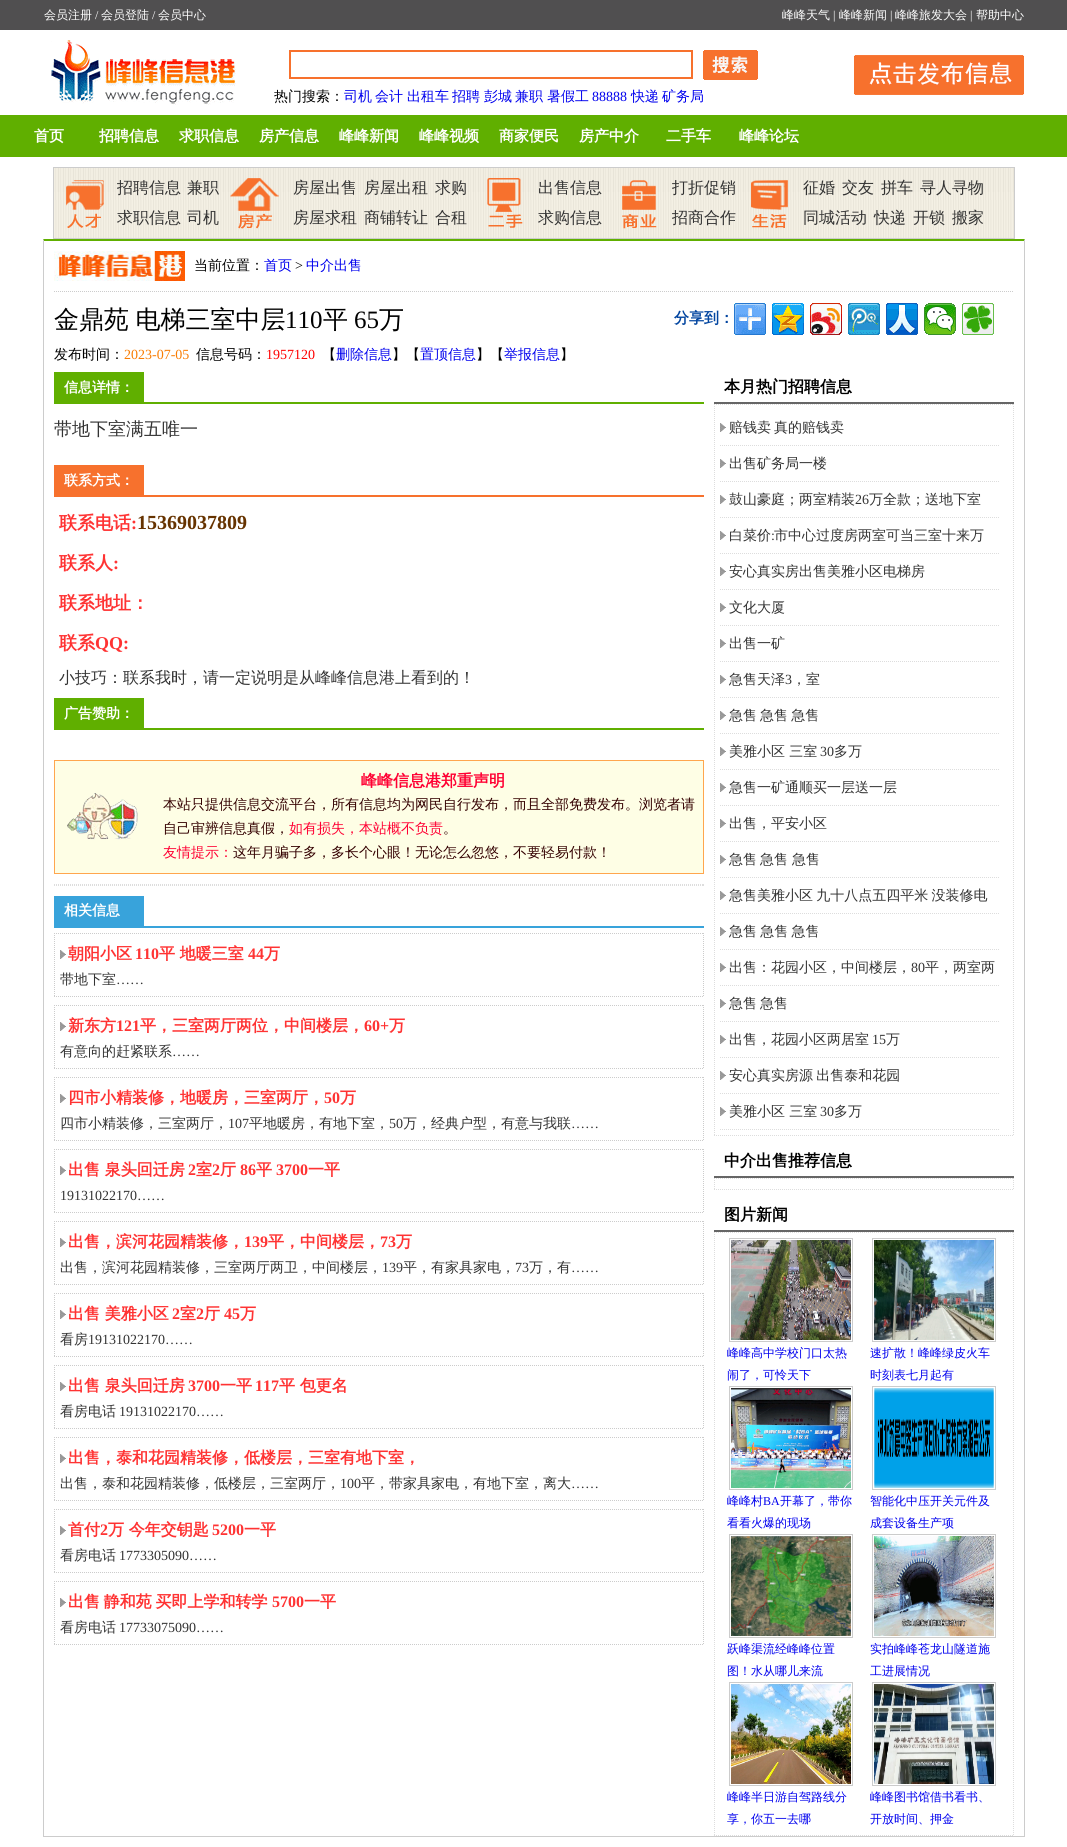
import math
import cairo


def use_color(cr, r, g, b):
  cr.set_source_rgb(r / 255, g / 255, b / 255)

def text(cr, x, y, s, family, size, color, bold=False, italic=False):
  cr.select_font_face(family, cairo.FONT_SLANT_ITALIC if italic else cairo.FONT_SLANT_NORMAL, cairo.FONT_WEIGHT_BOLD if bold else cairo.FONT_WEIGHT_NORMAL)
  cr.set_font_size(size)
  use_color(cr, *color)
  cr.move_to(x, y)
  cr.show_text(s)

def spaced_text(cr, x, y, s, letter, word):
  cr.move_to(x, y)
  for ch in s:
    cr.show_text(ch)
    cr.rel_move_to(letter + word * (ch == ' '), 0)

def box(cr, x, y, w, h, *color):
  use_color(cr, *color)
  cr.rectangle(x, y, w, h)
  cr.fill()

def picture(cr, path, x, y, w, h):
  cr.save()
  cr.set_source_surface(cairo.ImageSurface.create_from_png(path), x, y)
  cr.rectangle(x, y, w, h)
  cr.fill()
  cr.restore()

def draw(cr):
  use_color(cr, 255, 255, 255)
  cr.paint()
  box(cr, 0, 0, 1067, 30, 80, 79, 80)
  picture(cr, "img_01.png", 51, 40, 185, 65)
  picture(cr, "img_02.png", 854, 55, 170, 40)
  cr.rectangle(290, 51, 402, 27)
  use_color(cr, 247, 113, 45)
  cr.stroke()
  picture(cr, "img_03.png", 703, 50, 55, 30)
  box(cr, 0, 115, 1067, 42, 96, 175, 0)
  picture(cr, "img_04.png", 54, 168, 960, 70)
  cr.rectangle(53.5, 167.5, 961, 71)
  use_color(cr, 204, 204, 204)
  cr.set_line_width(1)
  cr.stroke()
  picture(cr, "img_05.png", 66, 180, 38, 48)
  picture(cr, "img_06.png", 230, 178, 49, 51)
  picture(cr, "img_07.png", 487, 178, 36, 50)
  picture(cr, "img_08.png", 622, 180, 35, 49)
  picture(cr, "img_09.png", 751, 180, 37, 48)
  use_color(cr, 96, 175, 0)
  cr.new_path()
  cr.move_to(43, 239)
  cr.line_to(1025, 239)
  cr.line_to(1024, 241)
  cr.line_to(44, 241)
  cr.close_path()
  cr.fill()
  use_color(cr, 204, 204, 204)
  cr.new_path()
  cr.move_to(1025, 239)
  cr.line_to(1025, 1837)
  cr.line_to(1024, 1836)
  cr.line_to(1024, 241)
  cr.close_path()
  cr.fill()
  box(cr, 43, 1836, 982, 1, 204, 204, 204)
  cr.new_path()
  cr.move_to(43, 1837)
  cr.line_to(43, 239)
  cr.line_to(44, 241)
  cr.line_to(44, 1836)
  cr.close_path()
  cr.fill()
  picture(cr, "img_10.png", 54, 251, 131, 30)
  cr.new_path()
  cr.move_to(54, 291.5)
  cr.line_to(1014, 291.5)
  cr.set_dash([1, 1])
  cr.stroke()
  picture(cr, "img_11.png", 734, 303, 32, 32)
  picture(cr, "img_12.png", 772, 303, 32, 32)
  picture(cr, "img_13.png", 810, 303, 32, 32)
  picture(cr, "img_14.png", 848, 303, 32, 32)
  picture(cr, "img_15.png", 886, 303, 32, 32)
  picture(cr, "img_16.png", 924, 303, 32, 32)
  picture(cr, "img_17.png", 962, 303, 32, 32)
  box(cr, 54, 402, 650, 2, 96, 175, 0)
  box(cr, 54, 372, 90, 30, 96, 175, 0)
  box(cr, 54, 495, 650, 2, 247, 113, 45)
  box(cr, 54, 465, 90, 30, 247, 113, 45)
  box(cr, 54, 728, 650, 2, 96, 175, 0)
  box(cr, 54, 698, 90, 30, 96, 175, 0)
  box(cr, 55, 761, 648, 112, 254, 254, 229)
  picture(cr, "img_18.png", 67, 793, 71, 47)
  cr.rectangle(54.5, 760.5, 649, 113)
  use_color(cr, 255, 166, 78)
  cr.set_dash([])
  cr.stroke()
  cr.new_path()
  cr.move_to(54, 884.5)
  cr.line_to(704, 884.5)
  use_color(cr, 221, 221, 221)
  cr.set_dash([1, 1])
  cr.stroke()
  box(cr, 703, 884, 1, 2, 221, 221, 221)
  cr.new_path()
  cr.move_to(54, 885.5)
  cr.line_to(704, 885.5)
  cr.stroke()
  box(cr, 54, 926, 650, 2, 56, 163, 219)
  box(cr, 54, 896, 90, 30, 56, 163, 219)
  cr.new_path()
  cr.move_to(54, 933.5)
  cr.line_to(704, 933.5)
  use_color(cr, 204, 204, 204)
  cr.stroke()
  cr.new_path()
  cr.move_to(703.5, 933)
  cr.line_to(703.5, 997)
  cr.stroke()
  cr.new_path()
  cr.move_to(54, 996.5)
  cr.line_to(704, 996.5)
  cr.stroke()
  cr.new_path()
  cr.move_to(54.5, 933)
  cr.line_to(54.5, 997)
  cr.stroke()
  picture(cr, "img_19.png", 60, 950, 6, 9)
  cr.new_path()
  cr.move_to(54, 1005.5)
  cr.line_to(704, 1005.5)
  cr.stroke()
  cr.new_path()
  cr.move_to(703.5, 1005)
  cr.line_to(703.5, 1069)
  cr.stroke()
  cr.new_path()
  cr.move_to(54, 1068.5)
  cr.line_to(704, 1068.5)
  cr.stroke()
  cr.new_path()
  cr.move_to(54.5, 1005)
  cr.line_to(54.5, 1069)
  cr.stroke()
  picture(cr, "img_19.png", 60, 1022, 6, 9)
  cr.new_path()
  cr.move_to(54, 1077.5)
  cr.line_to(704, 1077.5)
  cr.stroke()
  cr.new_path()
  cr.move_to(703.5, 1077)
  cr.line_to(703.5, 1141)
  cr.stroke()
  cr.new_path()
  cr.move_to(54, 1140.5)
  cr.line_to(704, 1140.5)
  cr.stroke()
  cr.new_path()
  cr.move_to(54.5, 1077)
  cr.line_to(54.5, 1141)
  cr.stroke()
  picture(cr, "img_19.png", 60, 1094, 6, 9)
  cr.new_path()
  cr.move_to(54, 1149.5)
  cr.line_to(704, 1149.5)
  cr.stroke()
  cr.new_path()
  cr.move_to(703.5, 1149)
  cr.line_to(703.5, 1213)
  cr.stroke()
  cr.new_path()
  cr.move_to(54, 1212.5)
  cr.line_to(704, 1212.5)
  cr.stroke()
  cr.new_path()
  cr.move_to(54.5, 1149)
  cr.line_to(54.5, 1213)
  cr.stroke()
  picture(cr, "img_19.png", 60, 1166, 6, 9)
  cr.new_path()
  cr.move_to(54, 1221.5)
  cr.line_to(704, 1221.5)
  cr.stroke()
  cr.new_path()
  cr.move_to(703.5, 1221)
  cr.line_to(703.5, 1285)
  cr.stroke()
  cr.new_path()
  cr.move_to(54, 1284.5)
  cr.line_to(704, 1284.5)
  cr.stroke()
  cr.new_path()
  cr.move_to(54.5, 1221)
  cr.line_to(54.5, 1285)
  cr.stroke()
  picture(cr, "img_19.png", 60, 1238, 6, 9)
  cr.new_path()
  cr.move_to(54, 1293.5)
  cr.line_to(704, 1293.5)
  cr.stroke()
  cr.new_path()
  cr.move_to(703.5, 1293)
  cr.line_to(703.5, 1357)
  cr.stroke()
  cr.new_path()
  cr.move_to(54, 1356.5)
  cr.line_to(704, 1356.5)
  cr.stroke()
  cr.new_path()
  cr.move_to(54.5, 1293)
  cr.line_to(54.5, 1357)
  cr.stroke()
  picture(cr, "img_19.png", 60, 1310, 6, 9)
  cr.new_path()
  cr.move_to(54, 1365.5)
  cr.line_to(704, 1365.5)
  cr.stroke()
  cr.new_path()
  cr.move_to(703.5, 1365)
  cr.line_to(703.5, 1429)
  cr.stroke()
  cr.new_path()
  cr.move_to(54, 1428.5)
  cr.line_to(704, 1428.5)
  cr.stroke()
  cr.new_path()
  cr.move_to(54.5, 1365)
  cr.line_to(54.5, 1429)
  cr.stroke()
  picture(cr, "img_19.png", 60, 1382, 6, 9)
  cr.new_path()
  cr.move_to(54, 1437.5)
  cr.line_to(704, 1437.5)
  cr.stroke()
  cr.new_path()
  cr.move_to(703.5, 1437)
  cr.line_to(703.5, 1501)
  cr.stroke()
  cr.new_path()
  cr.move_to(54, 1500.5)
  cr.line_to(704, 1500.5)
  cr.stroke()
  cr.new_path()
  cr.move_to(54.5, 1437)
  cr.line_to(54.5, 1501)
  cr.stroke()
  picture(cr, "img_19.png", 60, 1454, 6, 9)
  cr.new_path()
  cr.move_to(54, 1509.5)
  cr.line_to(704, 1509.5)
  cr.stroke()
  cr.new_path()
  cr.move_to(703.5, 1509)
  cr.line_to(703.5, 1573)
  cr.stroke()
  cr.new_path()
  cr.move_to(54, 1572.5)
  cr.line_to(704, 1572.5)
  cr.stroke()
  cr.new_path()
  cr.move_to(54.5, 1509)
  cr.line_to(54.5, 1573)
  cr.stroke()
  picture(cr, "img_19.png", 60, 1526, 6, 9)
  cr.new_path()
  cr.move_to(54, 1581.5)
  cr.line_to(704, 1581.5)
  cr.stroke()
  cr.new_path()
  cr.move_to(703.5, 1581)
  cr.line_to(703.5, 1645)
  cr.stroke()
  cr.new_path()
  cr.move_to(54, 1644.5)
  cr.line_to(704, 1644.5)
  cr.stroke()
  cr.new_path()
  cr.move_to(54.5, 1581)
  cr.line_to(54.5, 1645)
  cr.stroke()
  picture(cr, "img_19.png", 60, 1598, 6, 9)
  box(cr, 714, 402, 300, 2, 102, 102, 102)
  cr.new_path()
  cr.move_to(714, 404.5)
  cr.line_to(1014, 404.5)
  use_color(cr, 221, 221, 221)
  cr.stroke()
  cr.new_path()
  cr.move_to(1013.5, 404)
  cr.line_to(1013.5, 1136)
  cr.stroke()
  cr.new_path()
  cr.move_to(714, 1135.5)
  cr.line_to(1014, 1135.5)
  cr.stroke()
  cr.new_path()
  cr.move_to(714.5, 404)
  cr.line_to(714.5, 1136)
  cr.stroke()
  picture(cr, "img_20.png", 720, 423, 6, 9)
  cr.new_path()
  cr.move_to(720, 445.5)
  cr.line_to(1000, 445.5)
  cr.stroke()
  picture(cr, "img_20.png", 720, 459, 6, 9)
  cr.new_path()
  cr.move_to(720, 481.5)
  cr.line_to(1000, 481.5)
  cr.stroke()
  picture(cr, "img_20.png", 720, 495, 6, 9)
  cr.new_path()
  cr.move_to(720, 517.5)
  cr.line_to(1000, 517.5)
  cr.stroke()
  picture(cr, "img_20.png", 720, 531, 6, 9)
  cr.new_path()
  cr.move_to(720, 553.5)
  cr.line_to(1000, 553.5)
  cr.stroke()
  picture(cr, "img_20.png", 720, 567, 6, 9)
  cr.new_path()
  cr.move_to(720, 589.5)
  cr.line_to(1000, 589.5)
  cr.stroke()
  picture(cr, "img_20.png", 720, 603, 6, 9)
  cr.new_path()
  cr.move_to(720, 625.5)
  cr.line_to(1000, 625.5)
  cr.stroke()
  picture(cr, "img_20.png", 720, 639, 6, 9)
  cr.new_path()
  cr.move_to(720, 661.5)
  cr.line_to(1000, 661.5)
  cr.stroke()
  picture(cr, "img_20.png", 720, 675, 6, 9)
  cr.new_path()
  cr.move_to(720, 697.5)
  cr.line_to(1000, 697.5)
  cr.stroke()
  picture(cr, "img_20.png", 720, 711, 6, 9)
  cr.new_path()
  cr.move_to(720, 733.5)
  cr.line_to(1000, 733.5)
  cr.stroke()
  picture(cr, "img_20.png", 720, 747, 6, 9)
  cr.new_path()
  cr.move_to(720, 769.5)
  cr.line_to(1000, 769.5)
  cr.stroke()
  picture(cr, "img_20.png", 720, 783, 6, 9)
  cr.new_path()
  cr.move_to(720, 805.5)
  cr.line_to(1000, 805.5)
  cr.stroke()
  picture(cr, "img_20.png", 720, 819, 6, 9)
  cr.new_path()
  cr.move_to(720, 841.5)
  cr.line_to(1000, 841.5)
  cr.stroke()
  picture(cr, "img_20.png", 720, 855, 6, 9)
  cr.new_path()
  cr.move_to(720, 877.5)
  cr.line_to(1000, 877.5)
  cr.stroke()
  picture(cr, "img_20.png", 720, 891, 6, 9)
  cr.new_path()
  cr.move_to(720, 913.5)
  cr.line_to(1000, 913.5)
  cr.stroke()
  picture(cr, "img_20.png", 720, 927, 6, 9)
  cr.new_path()
  cr.move_to(720, 949.5)
  cr.line_to(1000, 949.5)
  cr.stroke()
  picture(cr, "img_20.png", 720, 963, 6, 9)
  cr.new_path()
  cr.move_to(720, 985.5)
  cr.line_to(1000, 985.5)
  cr.stroke()
  picture(cr, "img_20.png", 720, 999, 6, 9)
  cr.new_path()
  cr.move_to(720, 1021.5)
  cr.line_to(1000, 1021.5)
  cr.stroke()
  picture(cr, "img_20.png", 720, 1035, 6, 9)
  cr.new_path()
  cr.move_to(720, 1057.5)
  cr.line_to(1000, 1057.5)
  cr.stroke()
  picture(cr, "img_20.png", 720, 1071, 6, 9)
  cr.new_path()
  cr.move_to(720, 1093.5)
  cr.line_to(1000, 1093.5)
  cr.stroke()
  picture(cr, "img_20.png", 720, 1107, 6, 9)
  cr.new_path()
  cr.move_to(720, 1129.5)
  cr.line_to(1000, 1129.5)
  cr.stroke()
  box(cr, 714, 1176, 300, 2, 102, 102, 102)
  cr.new_path()
  cr.move_to(714, 1178.5)
  cr.line_to(1014, 1178.5)
  use_color(cr, 221, 221, 221)
  cr.stroke()
  cr.new_path()
  cr.move_to(1013.5, 1178)
  cr.line_to(1013.5, 1190)
  cr.stroke()
  cr.new_path()
  cr.move_to(714, 1189.5)
  cr.line_to(1014, 1189.5)
  cr.stroke()
  cr.new_path()
  cr.move_to(714.5, 1178)
  cr.line_to(714.5, 1190)
  cr.stroke()
  box(cr, 714, 1230, 300, 2, 102, 102, 102)
  cr.new_path()
  cr.move_to(714, 1232.5)
  cr.line_to(1014, 1232.5)
  use_color(cr, 221, 221, 221)
  cr.stroke()
  cr.new_path()
  cr.move_to(1013.5, 1232)
  cr.line_to(1013.5, 1836)
  cr.stroke()
  cr.new_path()
  cr.move_to(714, 1835.5)
  cr.line_to(1014, 1835.5)
  cr.stroke()
  cr.new_path()
  cr.move_to(714.5, 1232)
  cr.line_to(714.5, 1836)
  cr.stroke()
  cr.rectangle(729.5, 1238.5, 123, 103)
  use_color(cr, 204, 204, 204)
  cr.set_dash([])
  cr.stroke()
  picture(cr, "img_21.png", 731, 1240, 120, 100)
  cr.rectangle(872.5, 1238.5, 123, 103)
  cr.stroke()
  picture(cr, "img_22.png", 874, 1240, 120, 100)
  cr.rectangle(729.5, 1386.5, 123, 103)
  cr.stroke()
  picture(cr, "img_23.png", 731, 1388, 120, 100)
  cr.rectangle(872.5, 1386.5, 123, 103)
  cr.stroke()
  picture(cr, "img_24.png", 874, 1388, 120, 100)
  cr.rectangle(729.5, 1534.5, 123, 103)
  cr.stroke()
  picture(cr, "img_25.png", 731, 1536, 120, 100)
  cr.rectangle(872.5, 1534.5, 123, 103)
  cr.stroke()
  picture(cr, "img_26.png", 874, 1536, 120, 100)
  cr.rectangle(729.5, 1682.5, 123, 103)
  cr.stroke()
  picture(cr, "img_27.png", 731, 1684, 120, 100)
  cr.rectangle(872.5, 1682.5, 123, 103)
  cr.stroke()
  picture(cr, "img_28.png", 874, 1684, 120, 100)
  text(cr, 44, 19, "会员注册", "WenQuanYi Zen Hei Medium", 12, (255, 255, 255))
  text(cr, 95, 19, "/", "Liberation Serif", 12, (255, 255, 255))
  text(cr, 101, 19, "会员登陆", "WenQuanYi Zen Hei Medium", 12, (255, 255, 255))
  text(cr, 152, 19, "/", "Liberation Serif", 12, (255, 255, 255))
  text(cr, 158, 19, "会员中心", "WenQuanYi Zen Hei Medium", 12, (255, 255, 255))
  text(cr, 782, 19, "峰峰天气", "WenQuanYi Zen Hei Medium", 12, (255, 255, 255))
  text(cr, 833, 19, "|", "Liberation Serif", 12, (255, 255, 255))
  text(cr, 839, 19, "峰峰新闻", "WenQuanYi Zen Hei Medium", 12, (255, 255, 255))
  text(cr, 890, 19, "|", "Liberation Serif", 12, (255, 255, 255))
  text(cr, 895, 19, "峰峰旅发大会", "WenQuanYi Zen Hei Medium", 12, (255, 255, 255))
  text(cr, 970, 19, "|", "Liberation Serif", 12, (255, 255, 255))
  text(cr, 976, 19, "帮助中心", "WenQuanYi Zen Hei Medium", 12, (255, 255, 255))
  text(cr, 274, 101, "热门搜索：", "WenQuanYi Zen Hei Medium", 14, (0, 0, 0))
  text(cr, 344, 101, "司机", "WenQuanYi Zen Hei Medium", 14, (0, 0, 238))
  text(cr, 375, 101, "会计", "WenQuanYi Zen Hei Medium", 14, (0, 0, 238))
  text(cr, 407, 101, "出租车", "WenQuanYi Zen Hei Medium", 14, (0, 0, 238))
  text(cr, 452, 101, "招聘", "WenQuanYi Zen Hei Medium", 14, (0, 0, 238))
  text(cr, 484, 101, "彭城", "WenQuanYi Zen Hei Medium", 14, (0, 0, 238))
  text(cr, 515, 101, "兼职", "WenQuanYi Zen Hei Medium", 14, (0, 0, 238))
  text(cr, 547, 101, "暑假工", "WenQuanYi Zen Hei Medium", 14, (0, 0, 238))
  text(cr, 592, 101, "88888", "Liberation Serif", 14, (0, 0, 238))
  text(cr, 631, 101, "快递", "WenQuanYi Zen Hei Medium", 14, (0, 0, 238))
  text(cr, 662, 101, "矿务局", "WenQuanYi Zen Hei Medium", 14, (0, 0, 238))
  text(cr, 34, 141, "首页", "WenQuanYi Zen Hei", 15, (255, 255, 255), bold=True)
  text(cr, 99, 141, "招聘信息", "WenQuanYi Zen Hei", 15, (255, 255, 255), bold=True)
  text(cr, 179, 141, "求职信息", "WenQuanYi Zen Hei", 15, (255, 255, 255), bold=True)
  text(cr, 259, 141, "房产信息", "WenQuanYi Zen Hei", 15, (255, 255, 255), bold=True)
  text(cr, 339, 141, "峰峰新闻", "WenQuanYi Zen Hei", 15, (255, 255, 255), bold=True)
  text(cr, 419, 141, "峰峰视频", "WenQuanYi Zen Hei", 15, (255, 255, 255), bold=True)
  text(cr, 499, 141, "商家便民", "WenQuanYi Zen Hei", 15, (255, 255, 255), bold=True)
  text(cr, 579, 141, "房产中介", "WenQuanYi Zen Hei", 15, (255, 255, 255), bold=True)
  text(cr, 666, 141, "二手车", "WenQuanYi Zen Hei", 15, (255, 255, 255), bold=True)
  text(cr, 739, 141, "峰峰论坛", "WenQuanYi Zen Hei", 15, (255, 255, 255), bold=True)
  text(cr, 117, 193, "招聘信息", "WenQuanYi Zen Hei Medium", 16, (51, 51, 51))
  text(cr, 187, 193, "兼职", "WenQuanYi Zen Hei Medium", 16, (51, 51, 51))
  text(cr, 117, 223, "求职信息", "WenQuanYi Zen Hei Medium", 16, (51, 51, 51))
  text(cr, 187, 223, "司机", "WenQuanYi Zen Hei Medium", 16, (51, 51, 51))
  text(cr, 293, 193, "房屋出售", "WenQuanYi Zen Hei Medium", 16, (51, 51, 51))
  text(cr, 364, 193, "房屋出租", "WenQuanYi Zen Hei Medium", 16, (51, 51, 51))
  text(cr, 435, 193, "求购", "WenQuanYi Zen Hei Medium", 16, (51, 51, 51))
  text(cr, 293, 223, "房屋求租", "WenQuanYi Zen Hei Medium", 16, (51, 51, 51))
  text(cr, 364, 223, "商铺转让", "WenQuanYi Zen Hei Medium", 16, (51, 51, 51))
  text(cr, 435, 223, "合租", "WenQuanYi Zen Hei Medium", 16, (51, 51, 51))
  text(cr, 538, 193, "出售信息", "WenQuanYi Zen Hei Medium", 16, (51, 51, 51))
  text(cr, 538, 223, "求购信息", "WenQuanYi Zen Hei Medium", 16, (51, 51, 51))
  text(cr, 672, 193, "打折促销", "WenQuanYi Zen Hei Medium", 16, (51, 51, 51))
  text(cr, 672, 223, "招商合作", "WenQuanYi Zen Hei Medium", 16, (51, 51, 51))
  text(cr, 803, 193, "征婚", "WenQuanYi Zen Hei Medium", 16, (51, 51, 51))
  text(cr, 842, 193, "交友", "WenQuanYi Zen Hei Medium", 16, (51, 51, 51))
  text(cr, 881, 193, "拼车", "WenQuanYi Zen Hei Medium", 16, (51, 51, 51))
  text(cr, 920, 193, "寻人寻物", "WenQuanYi Zen Hei Medium", 16, (51, 51, 51))
  text(cr, 803, 223, "同城活动", "WenQuanYi Zen Hei Medium", 16, (51, 51, 51))
  text(cr, 874, 223, "快递", "WenQuanYi Zen Hei Medium", 16, (51, 51, 51))
  text(cr, 913, 223, "开锁", "WenQuanYi Zen Hei Medium", 16, (51, 51, 51))
  text(cr, 952, 223, "搬家", "WenQuanYi Zen Hei Medium", 16, (51, 51, 51))
  text(cr, 194, 270, "当前位置：", "WenQuanYi Zen Hei Medium", 14, (0, 0, 0))
  text(cr, 264, 270, "首页", "WenQuanYi Zen Hei Medium", 14, (0, 0, 238))
  text(cr, 295, 270, ">", "Liberation Serif", 14, (0, 0, 0))
  text(cr, 306, 270, "中介出售", "WenQuanYi Zen Hei Medium", 14, (0, 0, 238))
  cr.set_font_size(25)
  use_color(cr, 0, 0, 0)
  spaced_text(cr, 54, 328, "金鼎苑 电梯三室中层", 0, -1)
  text(cr, 285, 328, "110", "Liberation Serif", 25, (0, 0, 0))
  text(cr, 323, 328, "平", "WenQuanYi Zen Hei Medium", 25, (0, 0, 0))
  text(cr, 354, 328, "65", "Liberation Serif", 25, (0, 0, 0))
  text(cr, 379, 328, "万", "WenQuanYi Zen Hei Medium", 25, (0, 0, 0))
  text(cr, 674, 323, "分享到：", "WenQuanYi Zen Hei", 15, (2, 69, 160), bold=True)
  text(cr, 54, 359, "发布时间：", "WenQuanYi Zen Hei Medium", 14, (0, 0, 0))
  text(cr, 124, 359, "2023-07-05", "Liberation Serif", 14, (249, 125, 3))
  text(cr, 196, 359, "信息号码：", "WenQuanYi Zen Hei Medium", 14, (0, 0, 0))
  text(cr, 266, 359, "1957120", "Liberation Serif", 14, (255, 0, 0))
  text(cr, 322, 359, "【", "WenQuanYi Zen Hei Medium", 14, (0, 0, 0))
  text(cr, 336, 359, "删除信息", "WenQuanYi Zen Hei Medium", 14, (0, 0, 238))
  text(cr, 392, 359, "】【", "WenQuanYi Zen Hei Medium", 14, (0, 0, 0))
  text(cr, 420, 359, "置顶信息", "WenQuanYi Zen Hei Medium", 14, (0, 0, 238))
  text(cr, 476, 359, "】【", "WenQuanYi Zen Hei Medium", 14, (0, 0, 0))
  text(cr, 504, 359, "举报信息", "WenQuanYi Zen Hei Medium", 14, (0, 0, 238))
  text(cr, 560, 359, "】", "WenQuanYi Zen Hei Medium", 14, (0, 0, 0))
  text(cr, 64, 392, "信息详情：", "WenQuanYi Zen Hei", 14, (255, 255, 255), bold=True)
  text(cr, 54, 435, "带地下室满五唯一", "WenQuanYi Zen Hei Medium", 18, (51, 51, 51))
  text(cr, 64, 485, "联系方式：", "WenQuanYi Zen Hei", 14, (255, 255, 255), bold=True)
  text(cr, 59, 529, "联系电话", "WenQuanYi Zen Hei", 18, (255, 51, 51), bold=True)
  text(cr, 131, 529, ":", "Liberation Serif", 18, (255, 51, 51), bold=True)
  text(cr, 137, 529, "15369037809", "Liberation Serif", 20, (102, 51, 0), bold=True)
  text(cr, 59, 569, "联系人", "WenQuanYi Zen Hei", 18, (255, 51, 51), bold=True)
  text(cr, 113, 569, ":", "Liberation Serif", 18, (255, 51, 51), bold=True)
  text(cr, 59, 609, "联系地址：", "WenQuanYi Zen Hei", 18, (255, 51, 51), bold=True)
  text(cr, 59, 649, "联系", "WenQuanYi Zen Hei", 18, (255, 51, 51), bold=True)
  text(cr, 95, 649, "QQ:", "Liberation Serif", 18, (255, 51, 51), bold=True)
  text(cr, 59, 683, "小技巧：联系我时，请一定说明是从峰峰信息港上看到的！", "WenQuanYi Zen Hei Medium", 16, (51, 51, 51))
  text(cr, 64, 718, "广告赞助：", "WenQuanYi Zen Hei", 14, (255, 255, 255), bold=True)
  text(cr, 361, 786, "峰峰信息港郑重声明", "WenQuanYi Zen Hei", 16, (255, 0, 51), bold=True)
  text(cr, 163, 809, "本站只提供信息交流平台，所有信息均为网民自行发布，而且全部免费发布。浏览者请", "WenQuanYi Zen Hei Medium", 14, (51, 0, 0))
  text(cr, 163, 833, "自己审辨信息真假，", "WenQuanYi Zen Hei Medium", 14, (51, 0, 0))
  text(cr, 289, 833, "如有损失，本站概不负责", "WenQuanYi Zen Hei Medium", 14, (255, 0, 51))
  text(cr, 443, 833, "。", "WenQuanYi Zen Hei Medium", 14, (51, 0, 0))
  text(cr, 163, 857, "友情提示：", "WenQuanYi Zen Hei Medium", 14, (255, 0, 51))
  text(cr, 233, 857, "这年月骗子多，多长个心眼！无论怎么忽悠，不要轻易付款！", "WenQuanYi Zen Hei Medium", 14, (51, 0, 0))
  text(cr, 64, 915, "相关信息", "WenQuanYi Zen Hei", 14, (255, 255, 255), bold=True)
  text(cr, 68, 959, "朝阳小区", "WenQuanYi Zen Hei", 16, (255, 51, 51), bold=True)
  text(cr, 135, 959, "110", "Liberation Serif", 16, (255, 51, 51), bold=True)
  text(cr, 159, 959, "平 地暖三室", "WenQuanYi Zen Hei", 16, (255, 51, 51), bold=True)
  text(cr, 248, 959, "44", "Liberation Serif", 16, (255, 51, 51), bold=True)
  text(cr, 264, 959, "万", "WenQuanYi Zen Hei", 16, (255, 51, 51), bold=True)
  text(cr, 60, 984, "带地下室", "WenQuanYi Zen Hei Medium", 14, (51, 51, 51))
  text(cr, 116, 984, "……", "Liberation Serif", 14, (51, 51, 51))
  text(cr, 68, 1031, "新东方", "WenQuanYi Zen Hei", 16, (255, 51, 51), bold=True)
  text(cr, 116, 1031, "121", "Liberation Serif", 16, (255, 51, 51), bold=True)
  text(cr, 140, 1031, "平，三室两厅两位，中间楼层，", "WenQuanYi Zen Hei", 16, (255, 51, 51), bold=True)
  text(cr, 364, 1031, "60+", "Liberation Serif", 16, (255, 51, 51), bold=True)
  text(cr, 389, 1031, "万", "WenQuanYi Zen Hei", 16, (255, 51, 51), bold=True)
  text(cr, 60, 1056, "有意向的赶紧联系", "WenQuanYi Zen Hei Medium", 14, (51, 51, 51))
  text(cr, 172, 1056, "……", "Liberation Serif", 14, (51, 51, 51))
  text(cr, 68, 1103, "四市小精装修，地暖房，三室两厅，", "WenQuanYi Zen Hei", 16, (255, 51, 51), bold=True)
  text(cr, 324, 1103, "50", "Liberation Serif", 16, (255, 51, 51), bold=True)
  text(cr, 340, 1103, "万", "WenQuanYi Zen Hei", 16, (255, 51, 51), bold=True)
  text(cr, 60, 1128, "四市小精装修，三室两厅，", "WenQuanYi Zen Hei Medium", 14, (51, 51, 51))
  text(cr, 228, 1128, "107", "Liberation Serif", 14, (51, 51, 51))
  text(cr, 249, 1128, "平地暖房，有地下室，", "WenQuanYi Zen Hei Medium", 14, (51, 51, 51))
  text(cr, 389, 1128, "50", "Liberation Serif", 14, (51, 51, 51))
  text(cr, 403, 1128, "万，经典户型，有意与我联", "WenQuanYi Zen Hei Medium", 14, (51, 51, 51))
  text(cr, 571, 1128, "……", "Liberation Serif", 14, (51, 51, 51))
  text(cr, 68, 1175, "出售 泉头回迁房", "WenQuanYi Zen Hei", 16, (255, 51, 51), bold=True)
  text(cr, 188, 1175, "2", "Liberation Serif", 16, (255, 51, 51), bold=True)
  text(cr, 196, 1175, "室", "WenQuanYi Zen Hei", 16, (255, 51, 51), bold=True)
  text(cr, 212, 1175, "2", "Liberation Serif", 16, (255, 51, 51), bold=True)
  text(cr, 220, 1175, "厅", "WenQuanYi Zen Hei", 16, (255, 51, 51), bold=True)
  text(cr, 240, 1175, "86", "Liberation Serif", 16, (255, 51, 51), bold=True)
  text(cr, 256, 1175, "平", "WenQuanYi Zen Hei", 16, (255, 51, 51), bold=True)
  text(cr, 276, 1175, "3700", "Liberation Serif", 16, (255, 51, 51), bold=True)
  text(cr, 308, 1175, "一平", "WenQuanYi Zen Hei", 16, (255, 51, 51), bold=True)
  text(cr, 60, 1200, "19131022170……", "Liberation Serif", 14, (51, 51, 51))
  text(cr, 68, 1247, "出售，滨河花园精装修，", "WenQuanYi Zen Hei", 16, (255, 51, 51), bold=True)
  text(cr, 244, 1247, "139", "Liberation Serif", 16, (255, 51, 51), bold=True)
  text(cr, 268, 1247, "平，中间楼层，", "WenQuanYi Zen Hei", 16, (255, 51, 51), bold=True)
  text(cr, 380, 1247, "73", "Liberation Serif", 16, (255, 51, 51), bold=True)
  text(cr, 396, 1247, "万", "WenQuanYi Zen Hei", 16, (255, 51, 51), bold=True)
  text(cr, 60, 1272, "出售，滨河花园精装修，三室两厅两卫，中间楼层，", "WenQuanYi Zen Hei Medium", 14, (51, 51, 51))
  text(cr, 382, 1272, "139", "Liberation Serif", 14, (51, 51, 51))
  text(cr, 403, 1272, "平，有家具家电，", "WenQuanYi Zen Hei Medium", 14, (51, 51, 51))
  text(cr, 515, 1272, "73", "Liberation Serif", 14, (51, 51, 51))
  text(cr, 529, 1272, "万，有", "WenQuanYi Zen Hei Medium", 14, (51, 51, 51))
  text(cr, 571, 1272, "……", "Liberation Serif", 14, (51, 51, 51))
  text(cr, 68, 1319, "出售 美雅小区", "WenQuanYi Zen Hei", 16, (255, 51, 51), bold=True)
  text(cr, 172, 1319, "2", "Liberation Serif", 16, (255, 51, 51), bold=True)
  text(cr, 180, 1319, "室", "WenQuanYi Zen Hei", 16, (255, 51, 51), bold=True)
  text(cr, 196, 1319, "2", "Liberation Serif", 16, (255, 51, 51), bold=True)
  text(cr, 204, 1319, "厅", "WenQuanYi Zen Hei", 16, (255, 51, 51), bold=True)
  text(cr, 224, 1319, "45", "Liberation Serif", 16, (255, 51, 51), bold=True)
  text(cr, 240, 1319, "万", "WenQuanYi Zen Hei", 16, (255, 51, 51), bold=True)
  text(cr, 60, 1344, "看房", "WenQuanYi Zen Hei Medium", 14, (51, 51, 51))
  text(cr, 88, 1344, "19131022170……", "Liberation Serif", 14, (51, 51, 51))
  text(cr, 68, 1391, "出售 泉头回迁房", "WenQuanYi Zen Hei", 16, (255, 51, 51), bold=True)
  text(cr, 188, 1391, "3700", "Liberation Serif", 16, (255, 51, 51), bold=True)
  text(cr, 220, 1391, "一平", "WenQuanYi Zen Hei", 16, (255, 51, 51), bold=True)
  text(cr, 255, 1391, "117", "Liberation Serif", 16, (255, 51, 51), bold=True)
  text(cr, 279, 1391, "平 包更名", "WenQuanYi Zen Hei", 16, (255, 51, 51), bold=True)
  text(cr, 60, 1416, "看房电话", "WenQuanYi Zen Hei Medium", 14, (51, 51, 51))
  text(cr, 119, 1416, "19131022170……", "Liberation Serif", 14, (51, 51, 51))
  text(cr, 68, 1463, "出售，泰和花园精装修，低楼层，三室有地下室，", "WenQuanYi Zen Hei", 16, (255, 51, 51), bold=True)
  text(cr, 60, 1488, "出售，泰和花园精装修，低楼层，三室两厅，", "WenQuanYi Zen Hei Medium", 14, (51, 51, 51))
  text(cr, 340, 1488, "100", "Liberation Serif", 14, (51, 51, 51))
  text(cr, 361, 1488, "平，带家具家电，有地下室，离大", "WenQuanYi Zen Hei Medium", 14, (51, 51, 51))
  text(cr, 571, 1488, "……", "Liberation Serif", 14, (51, 51, 51))
  text(cr, 68, 1535, "首付", "WenQuanYi Zen Hei", 16, (255, 51, 51), bold=True)
  text(cr, 100, 1535, "2", "Liberation Serif", 16, (255, 51, 51), bold=True)
  text(cr, 108, 1535, "万 今年交钥匙", "WenQuanYi Zen Hei", 16, (255, 51, 51), bold=True)
  text(cr, 212, 1535, "5200", "Liberation Serif", 16, (255, 51, 51), bold=True)
  text(cr, 244, 1535, "一平", "WenQuanYi Zen Hei", 16, (255, 51, 51), bold=True)
  text(cr, 60, 1560, "看房电话", "WenQuanYi Zen Hei Medium", 14, (51, 51, 51))
  text(cr, 119, 1560, "1773305090……", "Liberation Serif", 14, (51, 51, 51))
  cr.select_font_face("WenQuanYi Zen Hei", cairo.FONT_SLANT_NORMAL, cairo.FONT_WEIGHT_BOLD)
  cr.set_font_size(16)
  use_color(cr, 255, 51, 51)
  spaced_text(cr, 68, 1607, "出售 静和苑 买即上学和转学", 0, -1)
  text(cr, 272, 1607, "5700", "Liberation Serif", 16, (255, 51, 51), bold=True)
  text(cr, 304, 1607, "一平", "WenQuanYi Zen Hei", 16, (255, 51, 51), bold=True)
  text(cr, 60, 1632, "看房电话", "WenQuanYi Zen Hei Medium", 14, (51, 51, 51))
  text(cr, 119, 1632, "17733075090……", "Liberation Serif", 14, (51, 51, 51))
  text(cr, 724, 392, "本月热门招聘信息", "WenQuanYi Zen Hei", 16, (0, 0, 0), bold=True)
  text(cr, 729, 432, "赔钱卖", "WenQuanYi Zen Hei Medium", 14, (51, 51, 51))
  text(cr, 774, 432, "真的赔钱卖", "WenQuanYi Zen Hei Medium", 14, (51, 51, 51))
  text(cr, 729, 468, "出售矿务局一楼", "WenQuanYi Zen Hei Medium", 14, (51, 51, 51))
  text(cr, 729, 504, "鼓山豪庭；两室精装", "WenQuanYi Zen Hei Medium", 14, (51, 51, 51))
  text(cr, 855, 504, "26", "Liberation Serif", 14, (51, 51, 51))
  text(cr, 869, 504, "万全款；送地下室", "WenQuanYi Zen Hei Medium", 14, (51, 51, 51))
  text(cr, 729, 540, "白菜价", "WenQuanYi Zen Hei Medium", 14, (51, 51, 51))
  text(cr, 771, 540, ":", "Liberation Serif", 14, (51, 51, 51))
  text(cr, 774, 540, "市中心过度房两室可当三室十来万", "WenQuanYi Zen Hei Medium", 14, (51, 51, 51))
  text(cr, 729, 576, "安心真实房出售美雅小区电梯房", "WenQuanYi Zen Hei Medium", 14, (51, 51, 51))
  text(cr, 729, 612, "文化大厦", "WenQuanYi Zen Hei Medium", 14, (51, 51, 51))
  text(cr, 729, 648, "出售一矿", "WenQuanYi Zen Hei Medium", 14, (51, 51, 51))
  text(cr, 729, 684, "急售天泽", "WenQuanYi Zen Hei Medium", 14, (51, 51, 51))
  text(cr, 785, 684, "3", "Liberation Serif", 14, (51, 51, 51))
  text(cr, 792, 684, "，室", "WenQuanYi Zen Hei Medium", 14, (51, 51, 51))
  text(cr, 729, 720, "急售", "WenQuanYi Zen Hei Medium", 14, (51, 51, 51))
  spaced_text(cr, 760, 720, "急售 急售", 0, -1)
  text(cr, 729, 756, "美雅小区 三室", "WenQuanYi Zen Hei Medium", 14, (51, 51, 51))
  text(cr, 820, 756, "30", "Liberation Serif", 14, (51, 51, 51))
  text(cr, 834, 756, "多万", "WenQuanYi Zen Hei Medium", 14, (51, 51, 51))
  text(cr, 729, 792, "急售一矿通顺买一层送一层", "WenQuanYi Zen Hei Medium", 14, (51, 51, 51))
  text(cr, 729, 828, "出售，平安小区", "WenQuanYi Zen Hei Medium", 14, (51, 51, 51))
  text(cr, 729, 864, "急售", "WenQuanYi Zen Hei Medium", 14, (51, 51, 51))
  text(cr, 760, 864, "急售", "WenQuanYi Zen Hei Medium", 14, (51, 51, 51))
  text(cr, 792, 864, "急售", "WenQuanYi Zen Hei Medium", 14, (51, 51, 51))
  spaced_text(cr, 729, 900, "急售美雅小区 九十八点五四平米 没装修电", 0, -1)
  spaced_text(cr, 729, 936, "急售 急售 急售", 0, -1)
  text(cr, 729, 972, "出售：花园小区，中间楼层，", "WenQuanYi Zen Hei Medium", 14, (51, 51, 51))
  text(cr, 911, 972, "80", "Liberation Serif", 14, (51, 51, 51))
  text(cr, 925, 972, "平，两室两", "WenQuanYi Zen Hei Medium", 14, (51, 51, 51))
  text(cr, 729, 1008, "急售", "WenQuanYi Zen Hei Medium", 14, (51, 51, 51))
  text(cr, 760, 1008, "急售", "WenQuanYi Zen Hei Medium", 14, (51, 51, 51))
  text(cr, 729, 1044, "出售，花园小区两居室", "WenQuanYi Zen Hei Medium", 14, (51, 51, 51))
  text(cr, 872, 1044, "15", "Liberation Serif", 14, (51, 51, 51))
  text(cr, 886, 1044, "万", "WenQuanYi Zen Hei Medium", 14, (51, 51, 51))
  spaced_text(cr, 729, 1080, "安心真实房源 出售泰和花园", 0, -1)
  text(cr, 729, 1116, "美雅小区 三室", "WenQuanYi Zen Hei Medium", 14, (51, 51, 51))
  text(cr, 820, 1116, "30", "Liberation Serif", 14, (51, 51, 51))
  text(cr, 834, 1116, "多万", "WenQuanYi Zen Hei Medium", 14, (51, 51, 51))
  text(cr, 724, 1166, "中介出售推荐信息", "WenQuanYi Zen Hei", 16, (0, 0, 0), bold=True)
  text(cr, 724, 1220, "图片新闻", "WenQuanYi Zen Hei", 16, (0, 0, 0), bold=True)
  text(cr, 727, 1357, "峰峰高中学校门口太热", "WenQuanYi Zen Hei Medium", 12, (0, 0, 238))
  text(cr, 727, 1379, "闹了，可怜天下", "WenQuanYi Zen Hei Medium", 12, (0, 0, 238))
  text(cr, 870, 1357, "速扩散！峰峰绿皮火车", "WenQuanYi Zen Hei Medium", 12, (0, 0, 238))
  text(cr, 870, 1379, "时刻表七月起有", "WenQuanYi Zen Hei Medium", 12, (0, 0, 238))
  text(cr, 727, 1505, "峰峰村", "WenQuanYi Zen Hei Medium", 12, (0, 0, 238))
  text(cr, 763, 1505, "BA", "Liberation Serif", 12, (0, 0, 238))
  text(cr, 780, 1505, "开幕了，带你", "WenQuanYi Zen Hei Medium", 12, (0, 0, 238))
  text(cr, 727, 1527, "看看火爆的现场", "WenQuanYi Zen Hei Medium", 12, (0, 0, 238))
  text(cr, 870, 1505, "智能化中压开关元件及", "WenQuanYi Zen Hei Medium", 12, (0, 0, 238))
  text(cr, 870, 1527, "成套设备生产项", "WenQuanYi Zen Hei Medium", 12, (0, 0, 238))
  text(cr, 727, 1653, "跃峰渠流经峰峰位置", "WenQuanYi Zen Hei Medium", 12, (0, 0, 238))
  text(cr, 727, 1675, "图！水从哪儿来流", "WenQuanYi Zen Hei Medium", 12, (0, 0, 238))
  text(cr, 870, 1653, "实拍峰峰苍龙山隧道施", "WenQuanYi Zen Hei Medium", 12, (0, 0, 238))
  text(cr, 870, 1675, "工进展情况", "WenQuanYi Zen Hei Medium", 12, (0, 0, 238))
  text(cr, 727, 1801, "峰峰半日游自驾路线分", "WenQuanYi Zen Hei Medium", 12, (0, 0, 238))
  text(cr, 727, 1823, "享，你五一去哪", "WenQuanYi Zen Hei Medium", 12, (0, 0, 238))
  text(cr, 870, 1801, "峰峰图书馆借书看书、", "WenQuanYi Zen Hei Medium", 12, (0, 0, 238))
  text(cr, 870, 1823, "开放时间、押金", "WenQuanYi Zen Hei Medium", 12, (0, 0, 238))


surface = cairo.ImageSurface(cairo.FORMAT_RGB24, 1067, 1847)
cr = cairo.Context(surface)
options = cairo.FontOptions()
options.set_hint_metrics(cairo.HINT_METRICS_OFF)
options.set_hint_style(cairo.HINT_STYLE_NONE)
cr.set_font_options(options)
cr.set_miter_limit(4)
draw(cr)
surface.write_to_png("out.png")
